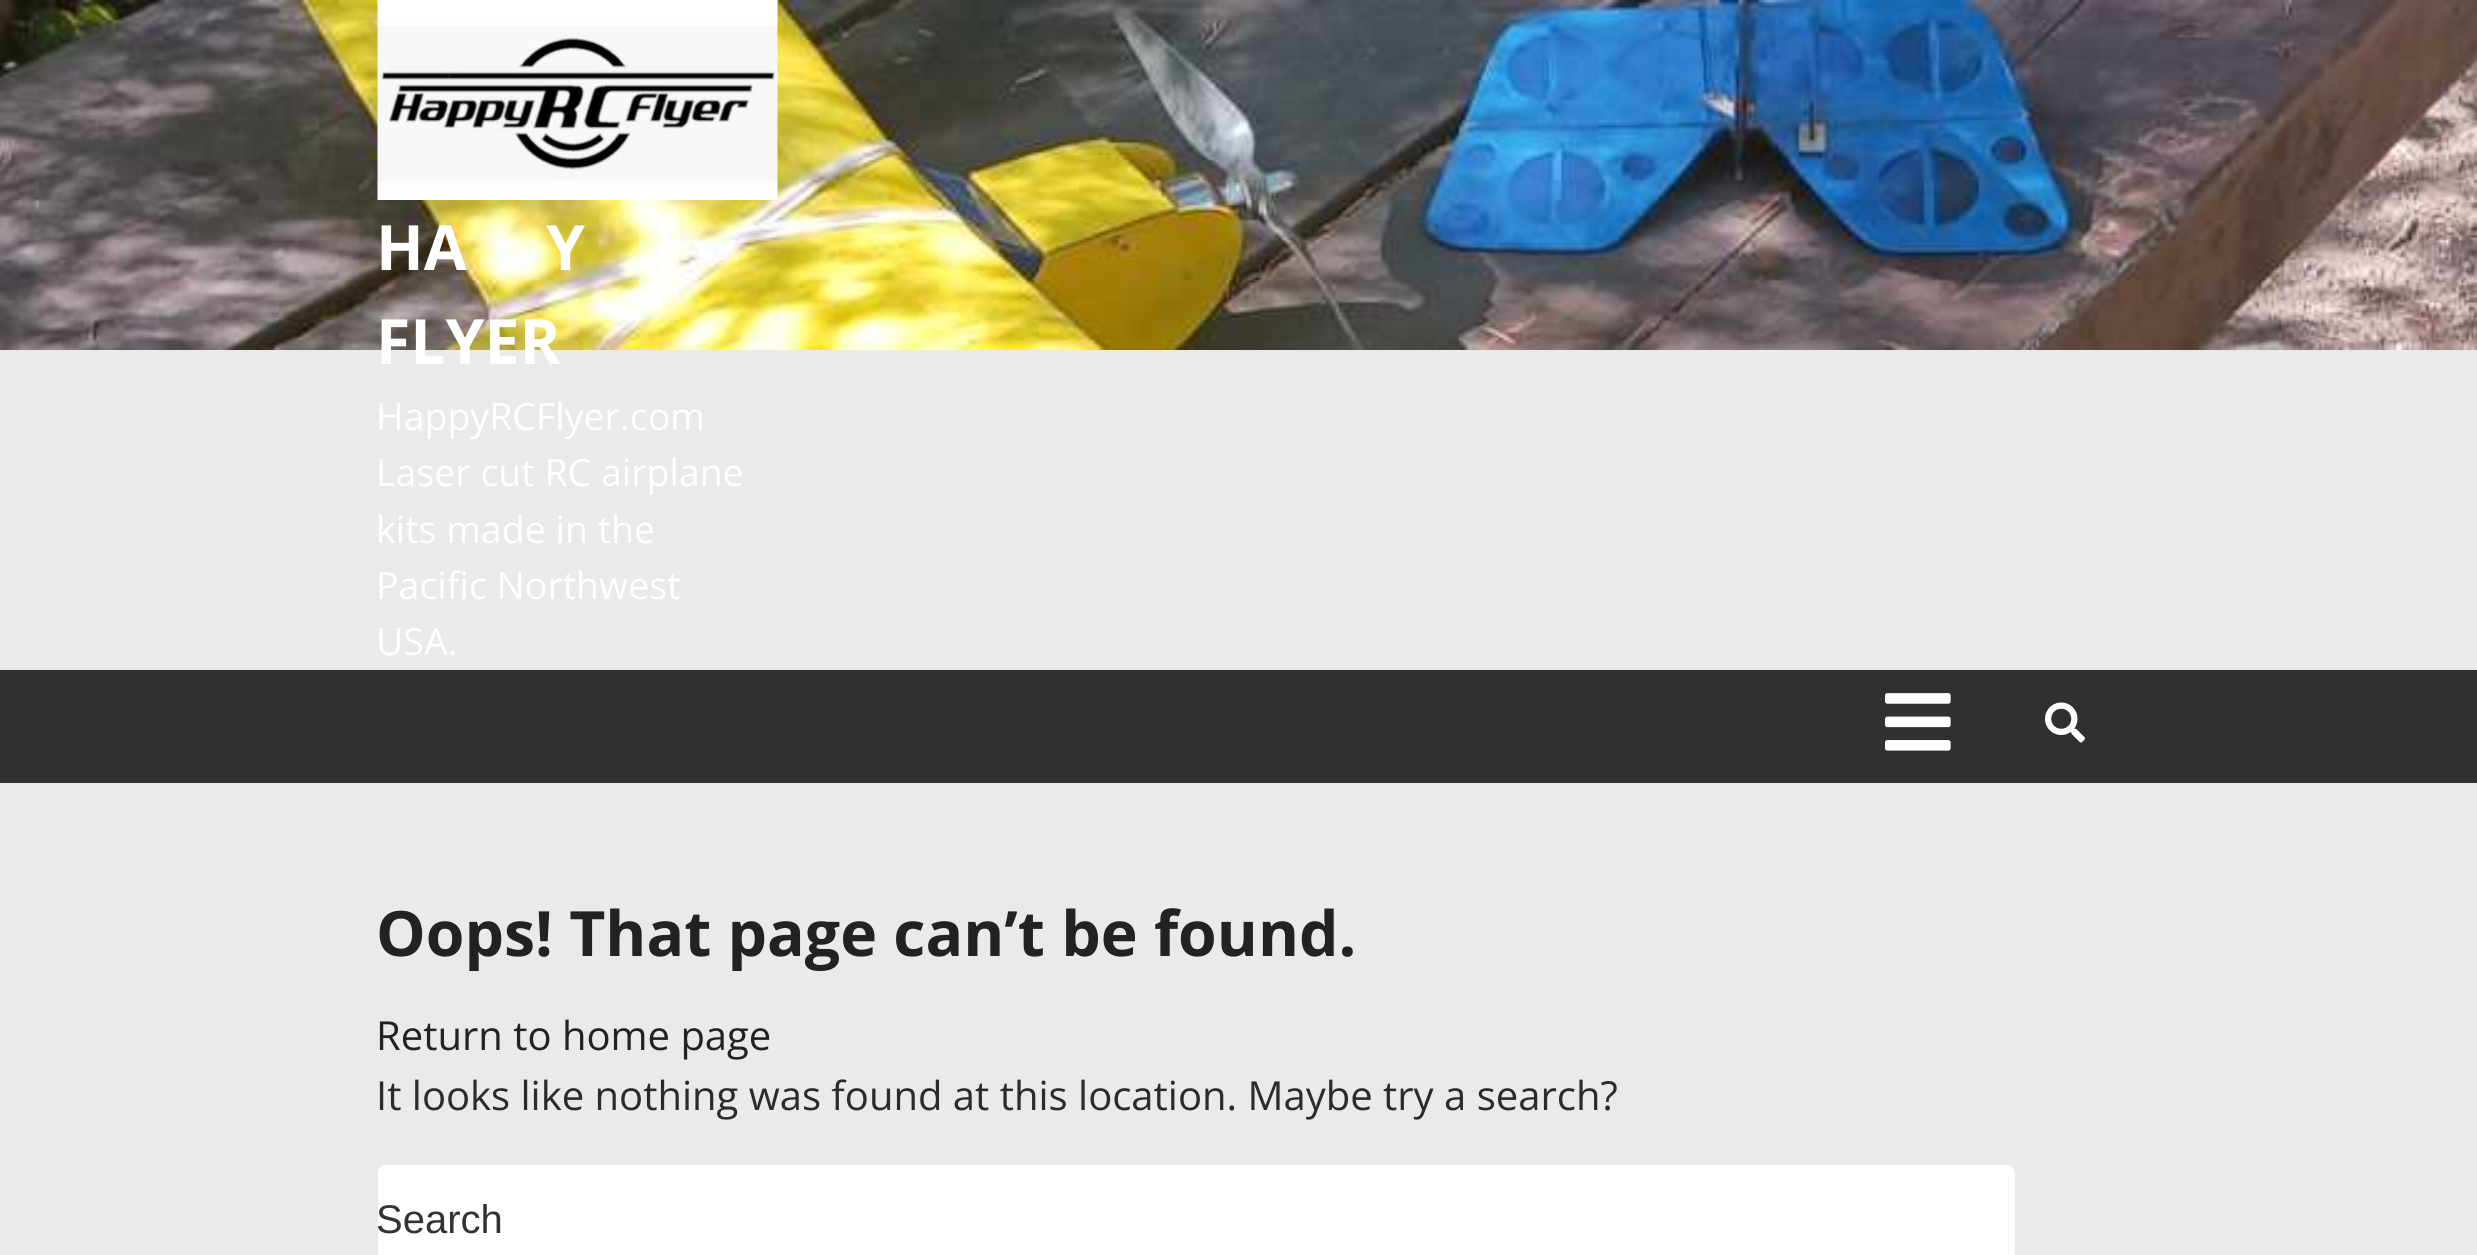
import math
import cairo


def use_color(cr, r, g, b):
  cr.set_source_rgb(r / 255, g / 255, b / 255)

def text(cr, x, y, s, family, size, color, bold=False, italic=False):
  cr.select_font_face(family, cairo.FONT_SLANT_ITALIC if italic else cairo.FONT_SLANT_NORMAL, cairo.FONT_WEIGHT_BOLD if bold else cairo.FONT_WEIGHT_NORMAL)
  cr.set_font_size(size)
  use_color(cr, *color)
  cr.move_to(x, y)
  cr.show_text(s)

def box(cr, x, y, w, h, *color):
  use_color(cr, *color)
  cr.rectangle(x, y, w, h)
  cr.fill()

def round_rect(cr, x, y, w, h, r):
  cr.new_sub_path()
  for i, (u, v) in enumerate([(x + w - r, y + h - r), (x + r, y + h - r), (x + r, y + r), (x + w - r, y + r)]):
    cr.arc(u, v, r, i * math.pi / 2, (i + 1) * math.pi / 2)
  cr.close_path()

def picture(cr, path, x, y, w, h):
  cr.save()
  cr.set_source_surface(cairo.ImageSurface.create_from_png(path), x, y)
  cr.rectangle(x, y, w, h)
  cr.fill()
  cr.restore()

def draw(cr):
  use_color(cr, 234, 234, 234)
  cr.paint()
  picture(cr, "img_01.png", 0, 0, 2477, 350)
  picture(cr, "img_02.png", 377, 0, 401, 200)
  box(cr, 0, 670, 2477, 113, 48, 48, 48)
  picture(cr, "img_03.png", 1885, 693, 66, 58)
  picture(cr, "img_04.png", 2045, 702, 40, 41)
  use_color(cr, 255, 255, 255)
  round_rect(cr, 378, 1165, 1637, 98, 8)
  cr.fill()
  text(cr, 376, 270, "HA", "Open Sans", 62.5, (255, 255, 255), bold=True)
  text(cr, 546, 270, "Y", "Open Sans", 62.5, (255, 255, 255), bold=True)
  text(cr, 376, 364, "FLYER", "Open Sans", 62.5, (255, 255, 255), bold=True)
  text(cr, 376, 430, "HappyRCFlyer.com", "Open Sans", 37.5, (255, 255, 255))
  text(cr, 376, 486, "Laser cut RC airplane", "Open Sans", 37.5, (255, 255, 255))
  text(cr, 376, 543, "kits made in the", "Open Sans", 37.5, (255, 255, 255))
  text(cr, 376, 599, "Pacific Northwest", "Open Sans", 37.5, (255, 255, 255))
  text(cr, 376, 655, "USA.", "Open Sans", 37.5, (255, 255, 255))
  text(cr, 376, 956, "Oops! That page can’t be found.", "Open Sans", 62.5, (34, 34, 34), bold=True)
  text(cr, 376, 1050, "Return to home page", "Open Sans", 40, (34, 34, 34))
  text(cr, 376, 1110, "It looks like nothing was found at this location. Maybe try a search?", "Open Sans", 40, (41, 43, 44))
  text(cr, 376, 1233, "Search", "Liberation Sans", 40, (51, 51, 51))


surface = cairo.ImageSurface(cairo.FORMAT_RGB24, 2477, 1255)
cr = cairo.Context(surface)
options = cairo.FontOptions()
options.set_hint_metrics(cairo.HINT_METRICS_OFF)
options.set_hint_style(cairo.HINT_STYLE_NONE)
cr.set_font_options(options)
cr.set_miter_limit(4)
draw(cr)
surface.write_to_png("out.png")
